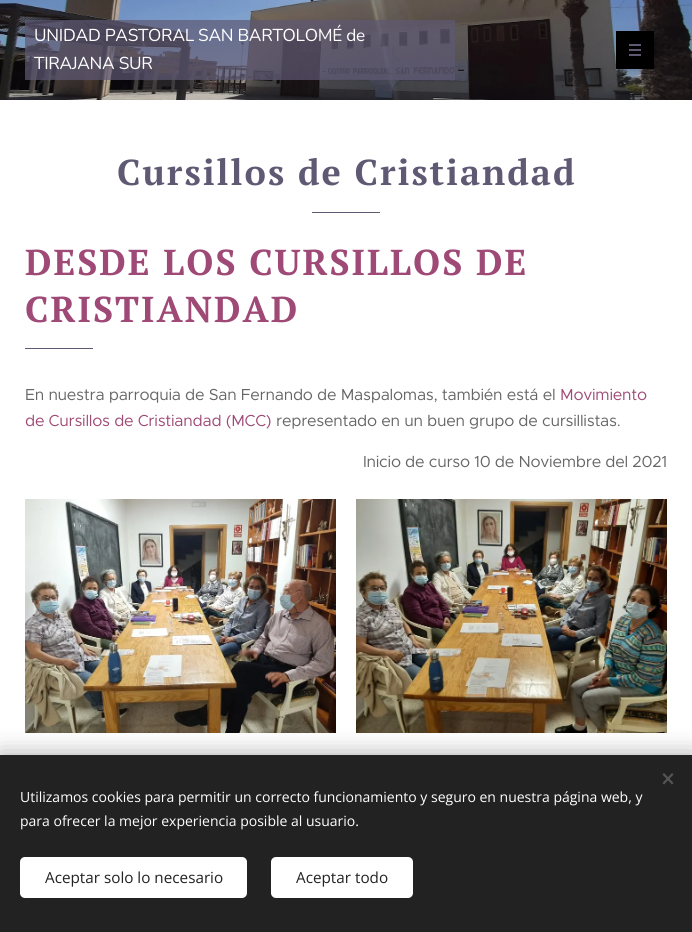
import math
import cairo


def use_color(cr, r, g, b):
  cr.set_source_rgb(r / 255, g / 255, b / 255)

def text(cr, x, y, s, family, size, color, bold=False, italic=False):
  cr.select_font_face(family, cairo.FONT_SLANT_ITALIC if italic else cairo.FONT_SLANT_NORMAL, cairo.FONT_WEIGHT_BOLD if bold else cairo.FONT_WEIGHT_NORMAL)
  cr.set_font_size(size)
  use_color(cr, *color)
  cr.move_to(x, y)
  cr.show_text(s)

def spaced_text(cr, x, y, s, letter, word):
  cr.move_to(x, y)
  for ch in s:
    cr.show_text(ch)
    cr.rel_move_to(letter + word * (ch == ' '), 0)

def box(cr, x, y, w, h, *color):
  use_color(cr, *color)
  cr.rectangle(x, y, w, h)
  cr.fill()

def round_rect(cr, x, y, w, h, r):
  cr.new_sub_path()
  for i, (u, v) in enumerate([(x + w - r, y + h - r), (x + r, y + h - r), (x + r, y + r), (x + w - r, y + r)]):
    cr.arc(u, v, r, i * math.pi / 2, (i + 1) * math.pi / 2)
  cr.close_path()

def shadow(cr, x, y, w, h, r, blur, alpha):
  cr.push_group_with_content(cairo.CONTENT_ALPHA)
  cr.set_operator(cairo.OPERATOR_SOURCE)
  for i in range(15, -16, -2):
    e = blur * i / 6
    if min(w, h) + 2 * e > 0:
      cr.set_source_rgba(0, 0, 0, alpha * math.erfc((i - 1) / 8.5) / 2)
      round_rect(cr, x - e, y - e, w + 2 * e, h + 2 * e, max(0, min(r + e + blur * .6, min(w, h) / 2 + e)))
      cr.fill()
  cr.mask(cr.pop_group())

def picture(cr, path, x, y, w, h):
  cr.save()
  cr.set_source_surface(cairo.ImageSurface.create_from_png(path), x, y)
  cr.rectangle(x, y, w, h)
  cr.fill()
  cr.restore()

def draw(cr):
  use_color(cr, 255, 255, 255)
  cr.paint()
  picture(cr, "img_01.png", 0, 0, 692, 100)
  cr.set_source_rgba(0.373, 0.349, 0.455, 0.7)
  cr.rectangle(25, 20, 430, 60)
  cr.fill()
  use_color(cr, 0, 0, 0)
  shadow(cr, 628, 43, 22, 22, 0, 8, 0.5)
  box(cr, 616, 31, 38, 38, 0, 0, 0)
  box(cr, 629, 49, 12, 2, 95, 89, 116)
  box(cr, 629, 44, 12, 2, 95, 89, 116)
  box(cr, 629, 54, 12, 2, 95, 89, 116)
  box(cr, 312, 212, 68, 1, 95, 89, 116)
  box(cr, 25, 348, 68, 1, 95, 89, 116)
  picture(cr, "img_02.png", 25, 499, 311, 234)
  picture(cr, "img_03.png", 356, 499, 311, 234)
  use_color(cr, 0, 0, 0)
  shadow(cr, 0, 755, 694, 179, 0, 12.5, 0.33)
  box(cr, 0, 755, 692, 177, 34, 34, 34)
  use_color(cr, 85, 85, 85)
  cr.new_path()
  cr.move_to(662.5, 783)
  cr.line_to(672, 773)
  cr.line_to(673.5, 774.5)
  cr.line_to(664, 784.5)
  cr.close_path()
  cr.fill()
  cr.new_path()
  cr.move_to(664, 773)
  cr.line_to(673.5, 783)
  cr.line_to(672, 784.5)
  cr.line_to(662.5, 774.5)
  cr.close_path()
  cr.fill()
  use_color(cr, 255, 255, 255)
  round_rect(cr, 20, 857, 227, 41, 5)
  cr.fill()
  round_rect(cr, 271, 857, 142, 41, 5)
  cr.fill()
  cr.select_font_face("Nunito")
  cr.set_font_size(17.25)
  spaced_text(cr, 34, 41, "UNIDAD PASTORAL SAN BARTOLOMÉ de", -0.25, 0)
  spaced_text(cr, 34, 69, "TIRAJANA SUR", -0.25, 0)
  cr.select_font_face("PT Serif", cairo.FONT_SLANT_NORMAL, cairo.FONT_WEIGHT_BOLD)
  cr.set_font_size(36)
  use_color(cr, 95, 89, 116)
  spaced_text(cr, 117, 185, "Cursillos de Cristiandad", 2, 0)
  use_color(cr, 159, 73, 118)
  spaced_text(cr, 25, 275, "DESDE LOS CURSILLOS DE", 2, 0)
  spaced_text(cr, 25, 322, "CRISTIANDAD", 2, 0)
  cr.select_font_face("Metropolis")
  cr.set_font_size(16)
  use_color(cr, 102, 102, 102)
  spaced_text(cr, 25, 400, "En nuestra parroquia de San Fernando de Maspalomas, también está el", -0.25, 0)
  use_color(cr, 159, 73, 118)
  spaced_text(cr, 560, 400, "Movimiento", -0.25, 0)
  spaced_text(cr, 25, 426, "de Cursillos de Cristiandad (MCC)", -0.25, 0)
  use_color(cr, 102, 102, 102)
  spaced_text(cr, 276, 426, "representado en un buen grupo de cursillistas.", -0.25, 0)
  spaced_text(cr, 363, 467, "Inicio de curso 10 de Noviembre del 2021", -0.25, 0)
  text(cr, 20, 802, "Utilizamos cookies para permitir un correcto funcionamiento y seguro en nuestra página web, y", "Open Sans", 14, (255, 255, 255))
  text(cr, 20, 826, "para ofrecer la mejor experiencia posible al usuario.", "Open Sans", 14, (255, 255, 255))
  text(cr, 45, 883, "Aceptar solo lo necesario", "Open Sans", 15.25, (34, 34, 34))
  text(cr, 296, 883, "Aceptar todo", "Open Sans", 15.25, (34, 34, 34))


surface = cairo.ImageSurface(cairo.FORMAT_RGB24, 692, 932)
cr = cairo.Context(surface)
options = cairo.FontOptions()
options.set_hint_metrics(cairo.HINT_METRICS_OFF)
options.set_hint_style(cairo.HINT_STYLE_NONE)
cr.set_font_options(options)
cr.set_miter_limit(4)
draw(cr)
surface.write_to_png("out.png")
